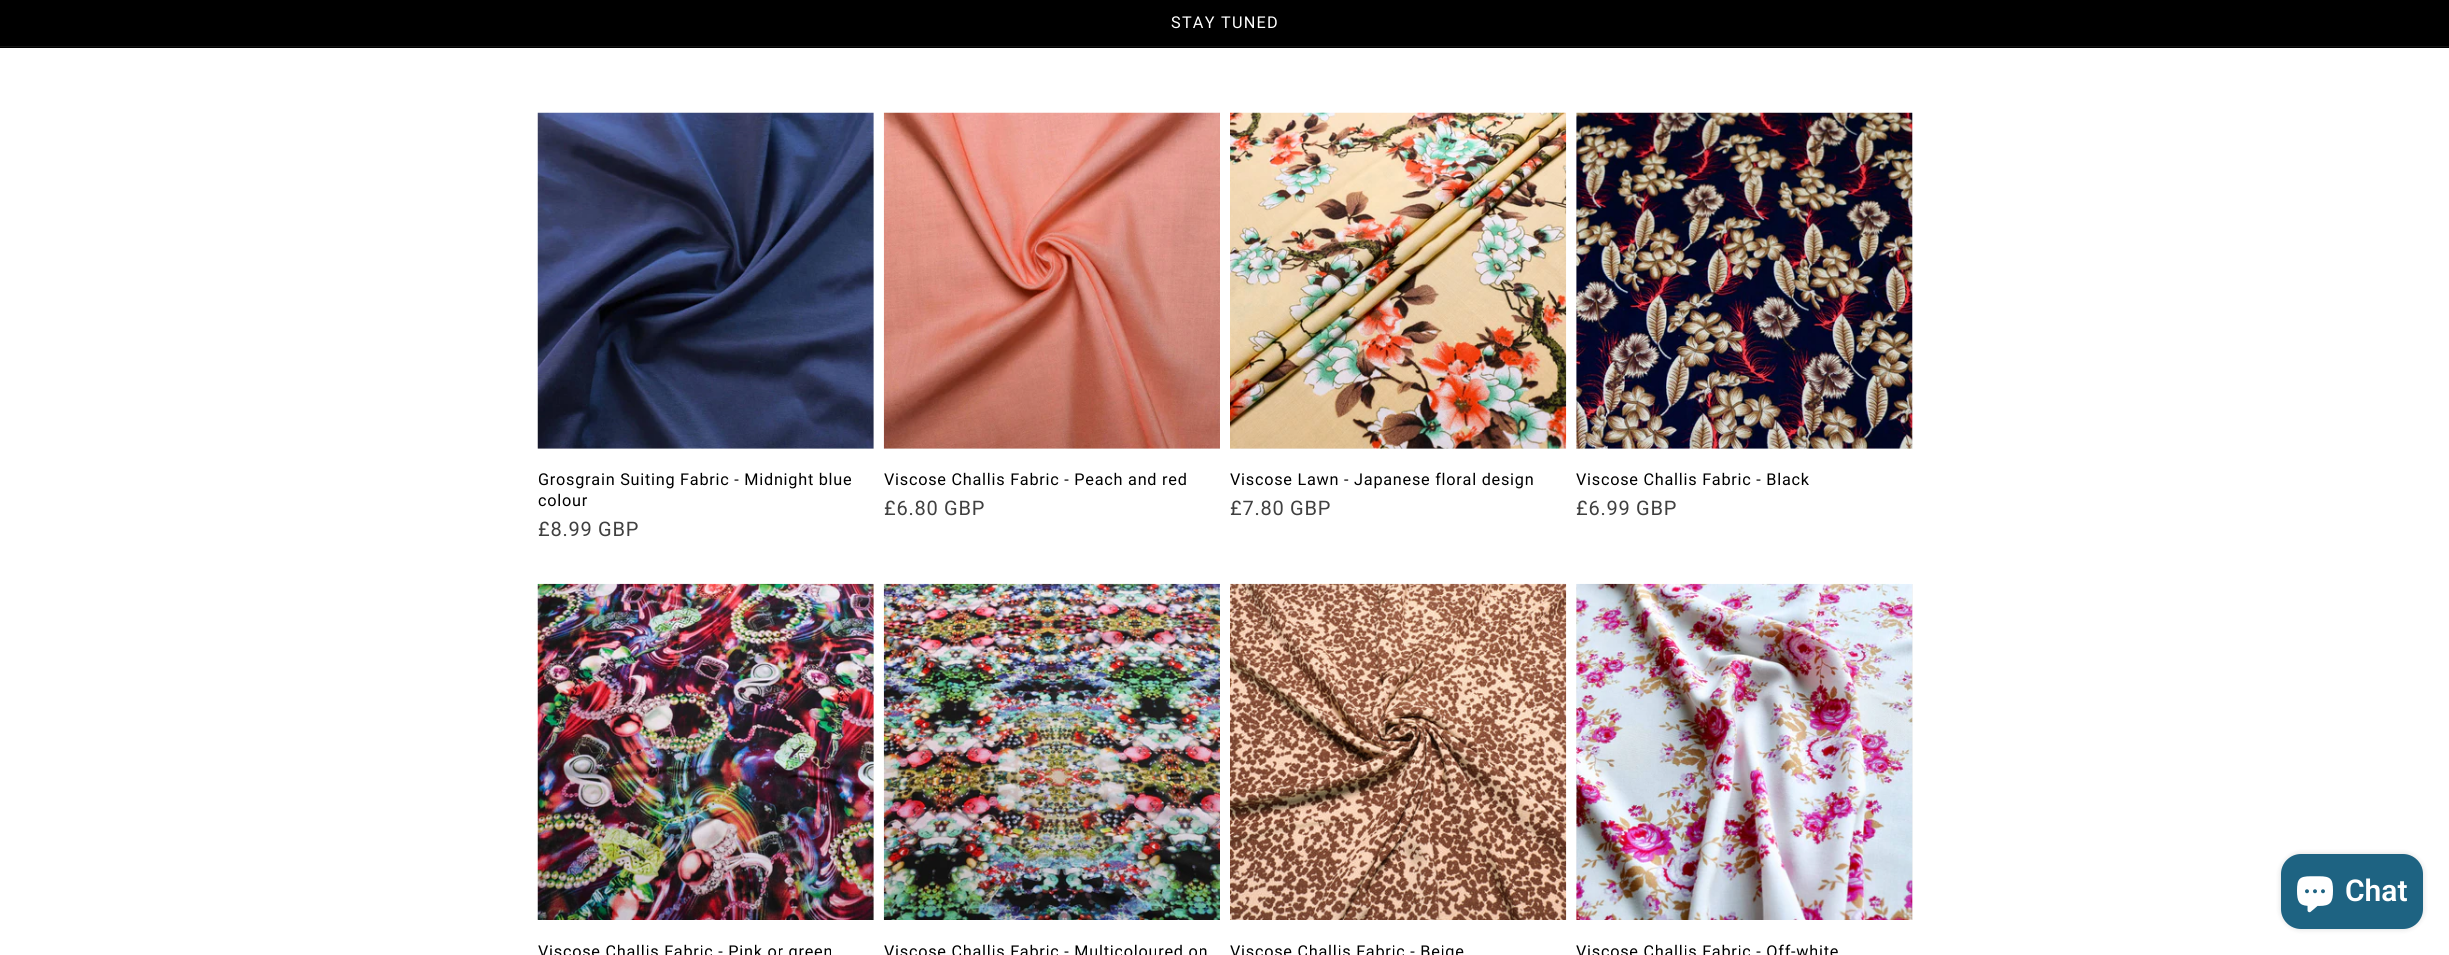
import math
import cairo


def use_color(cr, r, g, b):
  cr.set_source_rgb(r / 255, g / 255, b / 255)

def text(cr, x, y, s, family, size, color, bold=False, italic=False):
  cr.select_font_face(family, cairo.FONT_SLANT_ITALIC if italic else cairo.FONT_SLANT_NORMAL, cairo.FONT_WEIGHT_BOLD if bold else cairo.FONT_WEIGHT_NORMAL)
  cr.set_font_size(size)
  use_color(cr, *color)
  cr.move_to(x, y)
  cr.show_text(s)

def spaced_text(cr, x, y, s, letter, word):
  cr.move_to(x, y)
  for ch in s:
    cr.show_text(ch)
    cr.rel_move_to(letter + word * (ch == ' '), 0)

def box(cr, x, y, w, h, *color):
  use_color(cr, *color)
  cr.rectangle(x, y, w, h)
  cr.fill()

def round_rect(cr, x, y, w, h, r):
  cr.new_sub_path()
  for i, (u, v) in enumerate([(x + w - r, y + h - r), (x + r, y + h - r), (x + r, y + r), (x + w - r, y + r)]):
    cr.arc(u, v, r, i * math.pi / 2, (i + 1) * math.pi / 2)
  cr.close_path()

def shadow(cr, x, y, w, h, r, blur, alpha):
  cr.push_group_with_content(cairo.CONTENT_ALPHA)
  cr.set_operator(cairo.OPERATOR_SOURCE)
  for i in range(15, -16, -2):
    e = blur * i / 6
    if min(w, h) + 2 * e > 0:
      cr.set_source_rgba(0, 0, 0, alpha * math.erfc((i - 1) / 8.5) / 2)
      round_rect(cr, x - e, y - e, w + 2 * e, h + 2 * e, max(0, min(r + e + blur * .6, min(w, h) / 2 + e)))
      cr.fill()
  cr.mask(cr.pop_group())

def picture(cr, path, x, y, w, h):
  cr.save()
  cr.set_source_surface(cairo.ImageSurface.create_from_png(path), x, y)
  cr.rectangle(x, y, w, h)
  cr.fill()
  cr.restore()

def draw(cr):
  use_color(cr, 255, 255, 255)
  cr.paint()
  box(cr, 0, 0, 2449, 48, 0, 0, 0)
  box(cr, 0, 46, 2449, 1, 20, 20, 20)
  box(cr, 538, 113, 336, 336, 243, 243, 243)
  picture(cr, "img_01.png", 537, 112, 337, 337)
  box(cr, 884, 448, 336, 1, 243, 243, 243)
  picture(cr, "img_02.png", 883, 112, 337, 337)
  box(cr, 1230, 448, 336, 1, 243, 243, 243)
  picture(cr, "img_03.png", 1230, 112, 337, 337)
  box(cr, 1576, 113, 337, 336, 243, 243, 243)
  picture(cr, "img_04.png", 1576, 112, 337, 337)
  box(cr, 873, 584, 1, 336, 243, 243, 243)
  picture(cr, "img_05.png", 537, 583, 337, 337)
  picture(cr, "img_06.png", 883, 583, 337, 337)
  picture(cr, "img_07.png", 1230, 583, 337, 337)
  box(cr, 1576, 584, 337, 336, 243, 243, 243)
  picture(cr, "img_08.png", 1576, 583, 337, 337)
  use_color(cr, 0, 0, 0)
  shadow(cr, 2281, 854, 142, 75, 20, 3, 0.15)
  use_color(cr, 30, 99, 130)
  round_rect(cr, 2281, 854, 142, 75, 20)
  cr.fill()
  picture(cr, "img_09.png", 2297, 876, 36, 37)
  cr.select_font_face("Roboto")
  cr.set_font_size(16.25)
  use_color(cr, 255, 255, 255)
  spaced_text(cr, 1171, 28, "STAY TUNED", 1.25, 0)
  use_color(cr, 0, 0, 0)
  spaced_text(cr, 538, 485, "Grosgrain Suiting Fabric - Midnight blue", 0.75, 0)
  spaced_text(cr, 538, 506, "colour", 0.75, 0)
  cr.set_font_size(20)
  use_color(cr, 64, 64, 64)
  spaced_text(cr, 538, 536, "£8.99 GBP", 0.75, 0)
  cr.set_font_size(16.25)
  use_color(cr, 0, 0, 0)
  spaced_text(cr, 884, 485, "Viscose Challis Fabric - Peach and red", 0.75, 0)
  cr.set_font_size(20)
  use_color(cr, 64, 64, 64)
  spaced_text(cr, 884, 515, "£6.80 GBP", 0.75, 0)
  cr.set_font_size(16.25)
  use_color(cr, 0, 0, 0)
  spaced_text(cr, 1230, 485, "Viscose Lawn - Japanese floral design", 0.75, 0)
  cr.set_font_size(20)
  use_color(cr, 64, 64, 64)
  spaced_text(cr, 1230, 515, "£7.80 GBP", 0.75, 0)
  cr.set_font_size(16.25)
  use_color(cr, 0, 0, 0)
  spaced_text(cr, 1576, 485, "Viscose Challis Fabric - Black", 0.75, 0)
  cr.set_font_size(20)
  use_color(cr, 64, 64, 64)
  spaced_text(cr, 1576, 515, "£6.99 GBP", 0.75, 0)
  cr.set_font_size(16.25)
  use_color(cr, 0, 0, 0)
  spaced_text(cr, 538, 957, "Viscose Challis Fabric - Pink or green", 0.75, 0)
  spaced_text(cr, 884, 957, "Viscose Challis Fabric - Multicoloured on", 0.75, 0)
  spaced_text(cr, 1230, 957, "Viscose Challis Fabric - Beige", 0.75, 0)
  spaced_text(cr, 1576, 957, "Viscose Challis Fabric - Off-white", 0.75, 0)
  text(cr, 2345, 901, "Chat", "Roboto SemiBold", 30, (255, 255, 255))


surface = cairo.ImageSurface(cairo.FORMAT_RGB24, 2449, 955)
cr = cairo.Context(surface)
options = cairo.FontOptions()
options.set_hint_metrics(cairo.HINT_METRICS_OFF)
options.set_hint_style(cairo.HINT_STYLE_NONE)
cr.set_font_options(options)
cr.set_miter_limit(4)
draw(cr)
surface.write_to_png("out.png")
